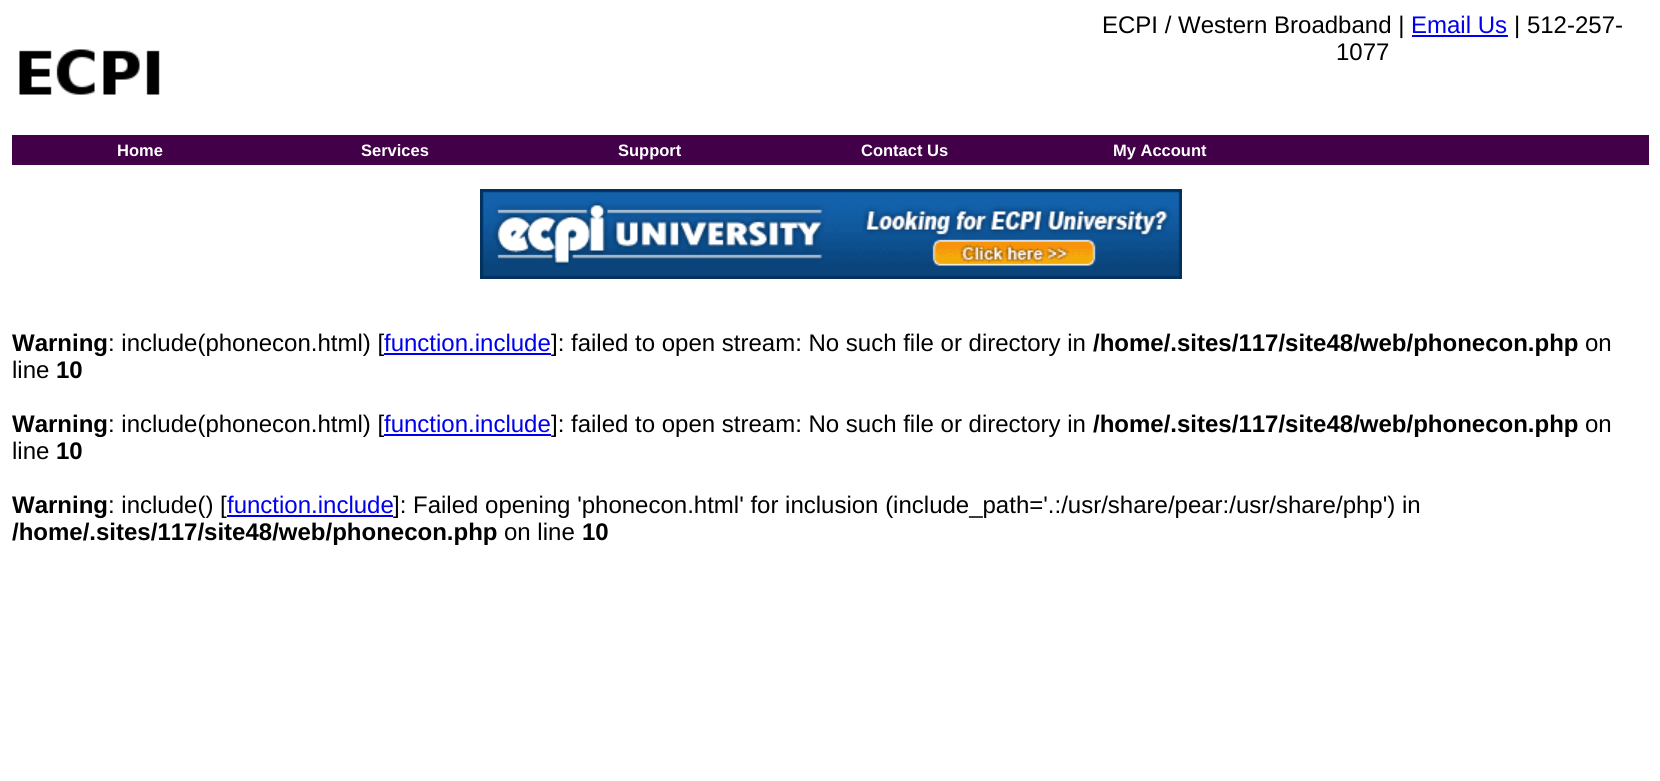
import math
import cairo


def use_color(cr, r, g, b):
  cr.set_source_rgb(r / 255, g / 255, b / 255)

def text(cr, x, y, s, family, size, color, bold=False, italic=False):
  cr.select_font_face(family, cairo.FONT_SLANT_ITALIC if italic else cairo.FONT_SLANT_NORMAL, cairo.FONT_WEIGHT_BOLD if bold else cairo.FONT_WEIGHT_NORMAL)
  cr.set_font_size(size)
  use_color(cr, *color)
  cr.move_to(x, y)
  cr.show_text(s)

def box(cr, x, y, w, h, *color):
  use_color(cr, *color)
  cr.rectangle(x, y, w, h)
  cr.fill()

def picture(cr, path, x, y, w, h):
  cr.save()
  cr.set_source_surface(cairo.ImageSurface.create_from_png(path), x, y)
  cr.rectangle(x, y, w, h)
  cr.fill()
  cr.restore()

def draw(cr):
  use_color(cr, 255, 255, 255)
  cr.paint()
  box(cr, 1412, 35, 96, 2, 0, 0, 238)
  picture(cr, "img_01.png", 19, 49, 141, 46)
  box(cr, 12, 135, 1637, 30, 66, 0, 73)
  picture(cr, "img_02.png", 480, 189, 702, 90)
  box(cr, 384, 353, 167, 2, 0, 0, 238)
  box(cr, 384, 434, 167, 2, 0, 0, 238)
  box(cr, 227, 515, 166, 2, 0, 0, 238)
  text(cr, 1102, 33, "ECPI / Western Broadband |", "Liberation Sans", 24, (0, 0, 0))
  text(cr, 1411, 33, "Email Us", "Liberation Sans", 24, (0, 0, 238))
  text(cr, 1514, 33, "| 512-257-", "Liberation Sans", 24, (0, 0, 0))
  text(cr, 1336, 60, "1077", "Liberation Sans", 24, (0, 0, 0))
  text(cr, 117, 156, "Home", "Liberation Sans", 16.5, (255, 255, 255), bold=True)
  text(cr, 361, 156, "Services", "Liberation Sans", 16.5, (255, 255, 255), bold=True)
  text(cr, 618, 156, "Support", "Liberation Sans", 16.5, (255, 255, 255), bold=True)
  text(cr, 861, 156, "Contact Us", "Liberation Sans", 16.5, (255, 255, 255), bold=True)
  text(cr, 1113, 156, "My Account", "Liberation Sans", 16.5, (255, 255, 255), bold=True)
  text(cr, 12, 351, "Warning", "Liberation Sans", 24, (0, 0, 0), bold=True)
  text(cr, 108, 351, ": include(phonecon.html) [", "Liberation Sans", 24, (0, 0, 0))
  text(cr, 384, 351, "function.include", "Liberation Sans", 24, (0, 0, 238))
  text(cr, 551, 351, "]: failed to open stream: No such file or directory in", "Liberation Sans", 24, (0, 0, 0))
  text(cr, 1093, 351, "/home/.sites/117/site48/web/phonecon.php", "Liberation Sans", 24, (0, 0, 0), bold=True)
  text(cr, 1585, 351, "on", "Liberation Sans", 24, (0, 0, 0))
  text(cr, 12, 378, "line", "Liberation Sans", 24, (0, 0, 0))
  text(cr, 56, 378, "10", "Liberation Sans", 24, (0, 0, 0), bold=True)
  text(cr, 12, 432, "Warning", "Liberation Sans", 24, (0, 0, 0), bold=True)
  text(cr, 108, 432, ": include(phonecon.html) [", "Liberation Sans", 24, (0, 0, 0))
  text(cr, 384, 432, "function.include", "Liberation Sans", 24, (0, 0, 238))
  text(cr, 551, 432, "]: failed to open stream: No such file or directory in", "Liberation Sans", 24, (0, 0, 0))
  text(cr, 1093, 432, "/home/.sites/117/site48/web/phonecon.php", "Liberation Sans", 24, (0, 0, 0), bold=True)
  text(cr, 1585, 432, "on", "Liberation Sans", 24, (0, 0, 0))
  text(cr, 12, 459, "line", "Liberation Sans", 24, (0, 0, 0))
  text(cr, 56, 459, "10", "Liberation Sans", 24, (0, 0, 0), bold=True)
  text(cr, 12, 513, "Warning", "Liberation Sans", 24, (0, 0, 0), bold=True)
  text(cr, 108, 513, ": include() [", "Liberation Sans", 24, (0, 0, 0))
  text(cr, 227, 513, "function.include", "Liberation Sans", 24, (0, 0, 238))
  text(cr, 393, 513, "]: Failed opening 'phonecon.html' for inclusion (include_path='.:/usr/share/pear:/usr/share/php') in", "Liberation Sans", 24, (0, 0, 0))
  text(cr, 12, 540, "/home/.sites/117/site48/web/phonecon.php", "Liberation Sans", 24, (0, 0, 0), bold=True)
  text(cr, 504, 540, "on line", "Liberation Sans", 24, (0, 0, 0))
  text(cr, 582, 540, "10", "Liberation Sans", 24, (0, 0, 0), bold=True)


surface = cairo.ImageSurface(cairo.FORMAT_RGB24, 1660, 781)
cr = cairo.Context(surface)
options = cairo.FontOptions()
options.set_hint_metrics(cairo.HINT_METRICS_OFF)
options.set_hint_style(cairo.HINT_STYLE_NONE)
cr.set_font_options(options)
cr.set_miter_limit(4)
draw(cr)
surface.write_to_png("out.png")
